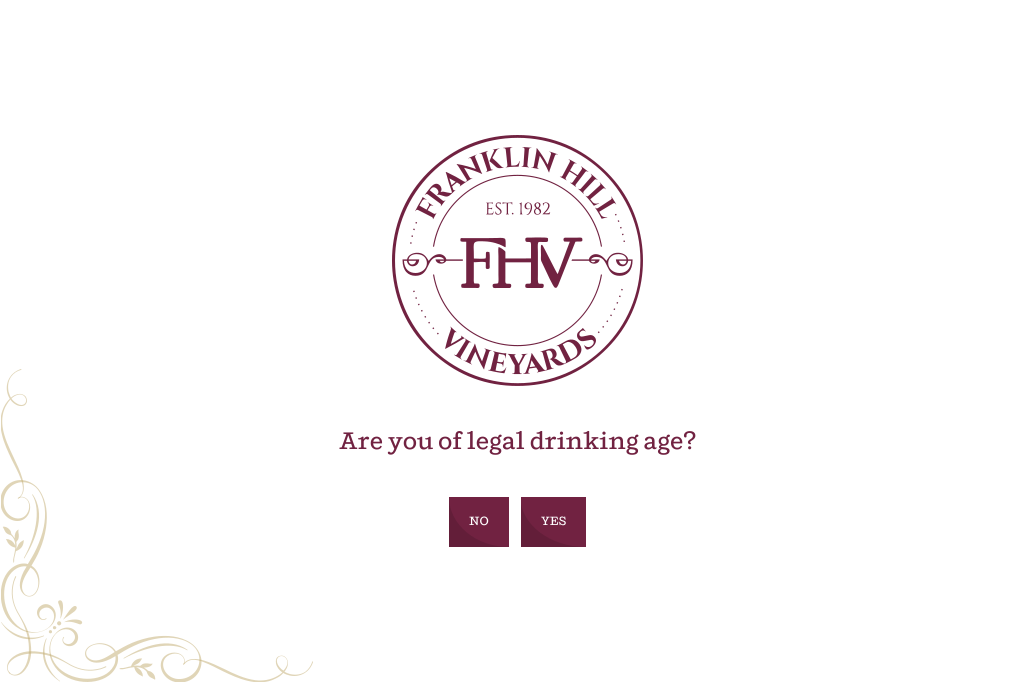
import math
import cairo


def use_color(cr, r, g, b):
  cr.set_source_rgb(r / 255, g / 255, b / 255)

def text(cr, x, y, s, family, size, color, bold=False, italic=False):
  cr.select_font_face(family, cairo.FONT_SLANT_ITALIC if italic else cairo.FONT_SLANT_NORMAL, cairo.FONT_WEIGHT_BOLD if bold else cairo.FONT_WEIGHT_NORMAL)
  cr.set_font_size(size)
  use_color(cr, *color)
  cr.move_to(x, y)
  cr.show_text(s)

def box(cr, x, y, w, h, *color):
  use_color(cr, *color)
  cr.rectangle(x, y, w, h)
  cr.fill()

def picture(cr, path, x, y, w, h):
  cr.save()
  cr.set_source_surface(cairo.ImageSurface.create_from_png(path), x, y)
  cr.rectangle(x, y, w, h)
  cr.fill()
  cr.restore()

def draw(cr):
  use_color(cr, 255, 255, 255)
  cr.paint()
  picture(cr, "img_01.png", 1, 369, 312, 313)
  picture(cr, "img_02.png", 392, 135, 251, 251)
  box(cr, 449, 497, 60, 50, 99, 30, 57)
  cr.save()
  cr.rectangle(449, 497, 60, 50)
  cr.clip()
  use_color(cr, 113, 34, 65)
  cr.new_path()
  cr.move_to(509, 447)
  cr.curve_to(542, 447, 569, 469.5, 569, 497)
  cr.curve_to(569, 524.5, 542, 547, 509, 547)
  cr.curve_to(476, 547, 449, 524.5, 449, 497)
  cr.curve_to(449, 469.5, 476, 447, 509, 447)
  cr.close_path()
  cr.fill()
  cr.restore()
  box(cr, 521, 503, 65, 44, 99, 30, 57)
  cr.save()
  cr.rectangle(521, 497, 65, 50)
  cr.clip()
  use_color(cr, 113, 34, 65)
  cr.new_path()
  cr.move_to(586, 447)
  cr.curve_to(622, 447, 651.5, 469.5, 651.5, 497)
  cr.curve_to(651.5, 524.5, 622, 547, 586, 547)
  cr.curve_to(550, 547, 520.5, 524.5, 520.5, 497)
  cr.curve_to(520.5, 469.5, 550, 447, 586, 447)
  cr.close_path()
  cr.fill()
  cr.restore()
  text(cr, 339, 449, "Are you of legal drinking age?", "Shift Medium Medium", 24, (113, 34, 65))
  text(cr, 469, 525, "NO", "Shift Medium Medium", 12, (255, 255, 255))
  text(cr, 541, 525, "YES", "Shift Medium Medium", 12, (255, 255, 255))


surface = cairo.ImageSurface(cairo.FORMAT_RGB24, 1035, 682)
cr = cairo.Context(surface)
options = cairo.FontOptions()
options.set_hint_metrics(cairo.HINT_METRICS_OFF)
options.set_hint_style(cairo.HINT_STYLE_NONE)
cr.set_font_options(options)
cr.set_miter_limit(4)
draw(cr)
surface.write_to_png("out.png")
